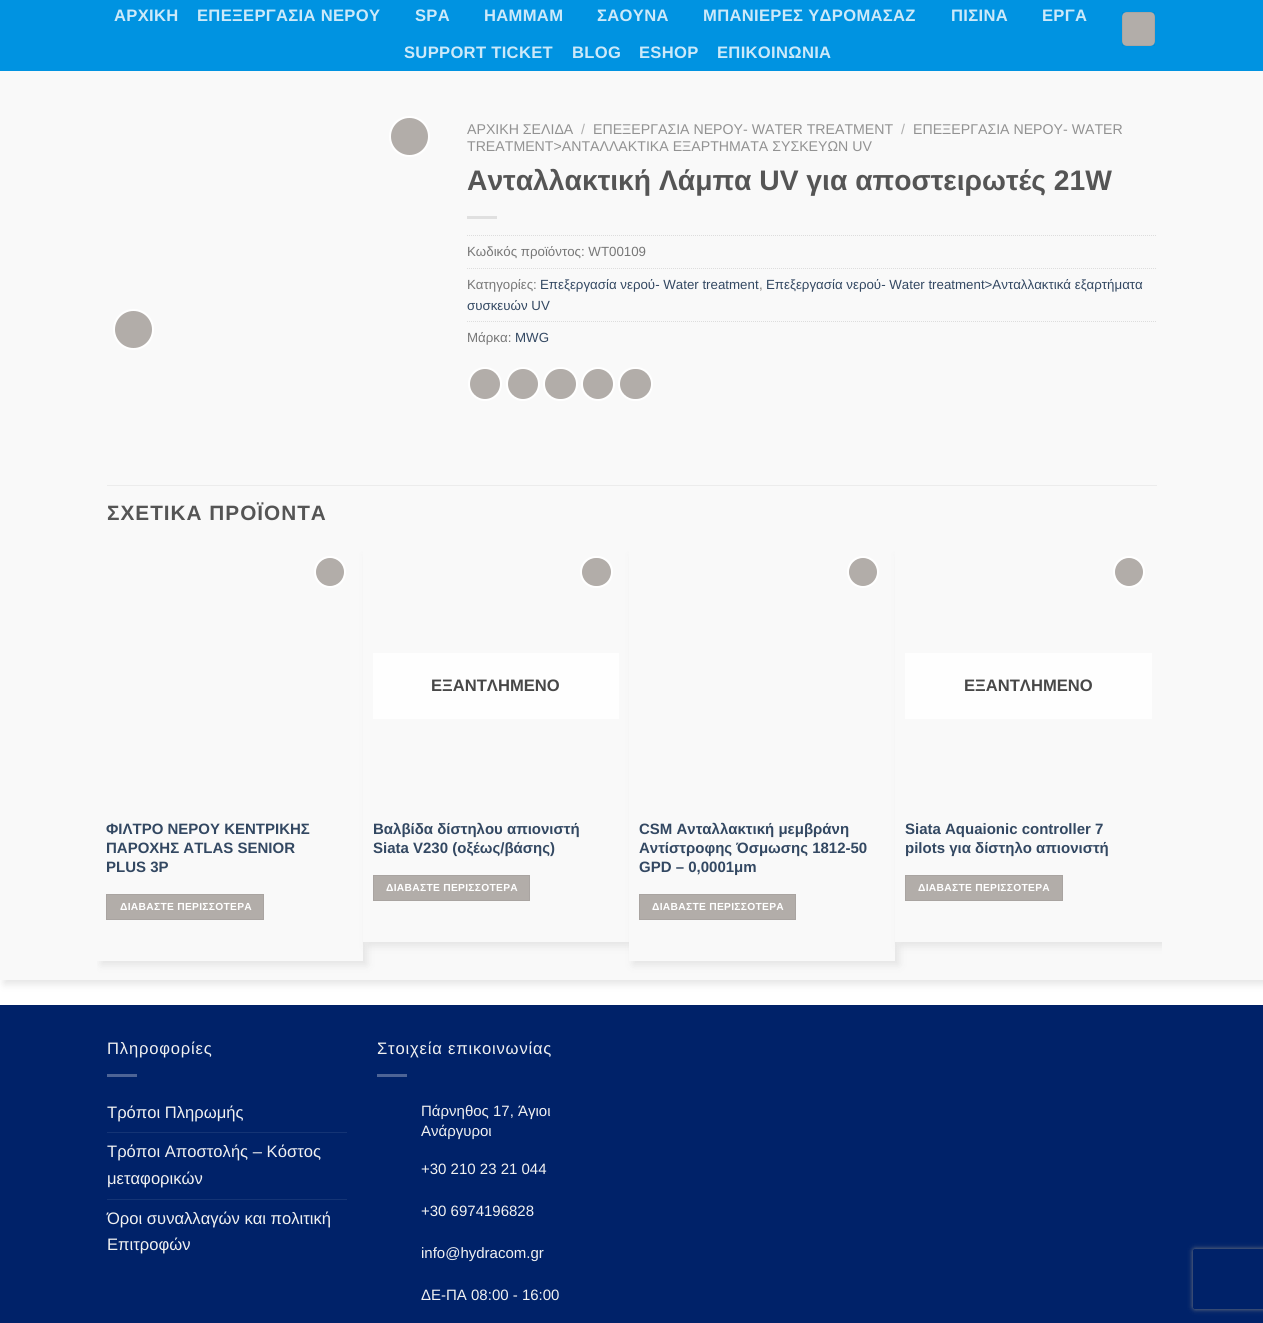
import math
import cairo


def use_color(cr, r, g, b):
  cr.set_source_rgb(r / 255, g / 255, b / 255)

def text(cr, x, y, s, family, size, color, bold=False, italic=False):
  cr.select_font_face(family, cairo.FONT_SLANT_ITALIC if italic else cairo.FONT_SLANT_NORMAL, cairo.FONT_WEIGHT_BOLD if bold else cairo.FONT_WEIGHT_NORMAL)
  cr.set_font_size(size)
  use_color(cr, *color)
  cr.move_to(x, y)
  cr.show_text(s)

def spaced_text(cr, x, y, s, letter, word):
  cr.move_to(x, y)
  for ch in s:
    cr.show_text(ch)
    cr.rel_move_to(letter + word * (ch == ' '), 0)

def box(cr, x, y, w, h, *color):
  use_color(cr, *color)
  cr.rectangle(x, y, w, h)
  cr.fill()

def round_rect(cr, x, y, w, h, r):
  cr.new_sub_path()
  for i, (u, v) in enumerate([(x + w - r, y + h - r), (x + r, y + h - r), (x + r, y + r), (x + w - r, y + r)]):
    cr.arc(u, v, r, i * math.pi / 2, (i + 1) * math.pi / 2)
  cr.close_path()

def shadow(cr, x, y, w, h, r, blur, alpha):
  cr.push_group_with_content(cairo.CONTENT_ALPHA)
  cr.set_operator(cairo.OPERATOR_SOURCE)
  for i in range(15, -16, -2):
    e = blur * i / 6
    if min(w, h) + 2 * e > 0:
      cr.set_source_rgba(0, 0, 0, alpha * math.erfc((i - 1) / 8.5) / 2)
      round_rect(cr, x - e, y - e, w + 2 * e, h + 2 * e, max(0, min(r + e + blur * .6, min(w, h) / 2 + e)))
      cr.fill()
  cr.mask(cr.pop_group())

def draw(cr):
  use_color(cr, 255, 255, 255)
  cr.paint()
  use_color(cr, 228, 228, 228)
  shadow(cr, 4, 75, 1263, 909, 0, 4, 1)
  box(cr, 0, 0, 1263, 71, 0, 147, 225)
  use_color(cr, 178, 173, 169)
  round_rect(cr, 1122, 12, 33, 34, 5)
  cr.fill()
  cr.rectangle(1122.5, 12.5, 32, 33)
  cr.set_source_rgba(0, 0, 0, 0.05)
  cr.set_line_width(1)
  cr.stroke()
  box(cr, 0, 71, 1263, 909, 249, 249, 249)
  use_color(cr, 178, 173, 169)
  cr.arc(409.5, 136.5, 19.5, 0, 2 * math.pi)
  cr.fill_preserve()
  use_color(cr, 255, 255, 255)
  cr.set_line_width(2)
  cr.stroke()
  use_color(cr, 178, 173, 169)
  cr.arc(133.5, 329.5, 19.5, 0, 2 * math.pi)
  cr.fill_preserve()
  use_color(cr, 255, 255, 255)
  cr.stroke()
  box(cr, 467, 216, 30, 3, 224, 224, 224)
  cr.new_path()
  cr.move_to(467, 235.5)
  cr.line_to(1157, 235.5)
  use_color(cr, 221, 221, 221)
  cr.set_line_width(1)
  cr.set_dash([1, 1])
  cr.stroke()
  cr.new_path()
  cr.move_to(467, 268.5)
  cr.line_to(1157, 268.5)
  cr.stroke()
  cr.new_path()
  cr.move_to(467, 321.5)
  cr.line_to(1157, 321.5)
  cr.stroke()
  use_color(cr, 178, 173, 169)
  cr.arc(485, 384, 16, 0, 2 * math.pi)
  cr.fill_preserve()
  use_color(cr, 255, 255, 255)
  cr.set_line_width(2)
  cr.set_dash([])
  cr.stroke()
  use_color(cr, 178, 173, 169)
  cr.arc(523, 384, 16, 0, 2 * math.pi)
  cr.fill_preserve()
  use_color(cr, 255, 255, 255)
  cr.stroke()
  use_color(cr, 178, 173, 169)
  round_rect(cr, 544, 368, 33, 32, 16)
  cr.fill_preserve()
  use_color(cr, 255, 255, 255)
  cr.stroke()
  use_color(cr, 178, 173, 169)
  cr.arc(598, 384, 16, 0, 2 * math.pi)
  cr.fill_preserve()
  use_color(cr, 255, 255, 255)
  cr.stroke()
  use_color(cr, 178, 173, 169)
  round_rect(cr, 619, 368, 33, 32, 16)
  cr.fill_preserve()
  use_color(cr, 255, 255, 255)
  cr.stroke()
  box(cr, 107, 485, 1050, 1, 236, 236, 236)
  cr.save()
  cr.rectangle(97, 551, 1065, 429)
  cr.clip()
  cr.set_fill_rule(cairo.FILL_RULE_EVEN_ODD)
  cr.new_path()
  cr.move_to(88, 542)
  cr.line_to(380, 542)
  cr.line_to(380, 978)
  cr.line_to(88, 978)
  cr.close_path()
  cr.move_to(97, 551)
  cr.line_to(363, 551)
  cr.line_to(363, 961)
  cr.line_to(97, 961)
  cr.close_path()
  cr.clip()
  use_color(cr, 228, 228, 228)
  shadow(cr, 101, 555, 266, 410, 0, 4, 1)
  cr.restore()
  use_color(cr, 178, 173, 169)
  cr.arc(330, 572, 15, 0, 2 * math.pi)
  cr.fill_preserve()
  use_color(cr, 255, 255, 255)
  cr.stroke()
  use_color(cr, 178, 173, 169)
  cr.rectangle(106.5, 894.5, 157, 25)
  cr.fill_preserve()
  use_color(cr, 169, 164, 161)
  cr.set_line_width(1)
  cr.stroke()
  cr.save()
  cr.rectangle(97, 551, 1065, 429)
  cr.clip()
  use_color(cr, 228, 228, 228)
  shadow(cr, 367, 555, 266, 391, 0, 4, 1)
  cr.restore()
  box(cr, 363, 551, 266, 391, 249, 249, 249)
  use_color(cr, 178, 173, 169)
  round_rect(cr, 581, 557, 31, 30, 15)
  cr.fill_preserve()
  use_color(cr, 255, 255, 255)
  cr.set_line_width(2)
  cr.stroke()
  box(cr, 373, 653, 246, 66, 254, 254, 254)
  use_color(cr, 178, 173, 169)
  cr.rectangle(373.5, 875.5, 156, 25)
  cr.fill_preserve()
  use_color(cr, 169, 164, 161)
  cr.set_line_width(1)
  cr.stroke()
  cr.save()
  cr.rectangle(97, 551, 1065, 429)
  cr.clip()
  use_color(cr, 228, 228, 228)
  shadow(cr, 633, 555, 266, 410, 0, 4, 1)
  cr.restore()
  box(cr, 629, 551, 266, 410, 249, 249, 249)
  use_color(cr, 178, 173, 169)
  cr.arc(863, 572, 15, 0, 2 * math.pi)
  cr.fill_preserve()
  use_color(cr, 255, 255, 255)
  cr.set_line_width(2)
  cr.stroke()
  use_color(cr, 178, 173, 169)
  cr.rectangle(639.5, 894.5, 156, 25)
  cr.fill_preserve()
  use_color(cr, 169, 164, 161)
  cr.set_line_width(1)
  cr.stroke()
  cr.save()
  cr.rectangle(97, 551, 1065, 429)
  cr.clip()
  use_color(cr, 228, 228, 228)
  shadow(cr, 899, 555, 267, 391, 0, 4, 1)
  cr.restore()
  box(cr, 895, 551, 267, 391, 249, 249, 249)
  use_color(cr, 178, 173, 169)
  cr.arc(1129, 572, 15, 0, 2 * math.pi)
  cr.fill_preserve()
  use_color(cr, 255, 255, 255)
  cr.set_line_width(2)
  cr.stroke()
  box(cr, 905, 653, 247, 66, 254, 254, 254)
  use_color(cr, 178, 173, 169)
  cr.rectangle(905.5, 875.5, 157, 25)
  cr.fill_preserve()
  use_color(cr, 169, 164, 161)
  cr.set_line_width(1)
  cr.stroke()
  box(cr, 0, 1006, 1263, 317, 0, 34, 105)
  box(cr, 0, 1005, 1263, 1, 0, 32, 100)
  box(cr, 107, 1074, 30, 3, 77, 100, 150)
  box(cr, 107, 1132, 240, 1, 20, 52, 117)
  box(cr, 107, 1199, 240, 1, 20, 52, 117)
  box(cr, 377, 1074, 30, 3, 77, 100, 150)
  cr.save()
  cr.set_fill_rule(cairo.FILL_RULE_EVEN_ODD)
  cr.new_path()
  cr.move_to(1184, 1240)
  cr.line_to(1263, 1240)
  cr.line_to(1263, 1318)
  cr.line_to(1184, 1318)
  cr.close_path()
  cr.move_to(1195, 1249)
  cr.line_to(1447, 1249)
  cr.curve_to(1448, 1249, 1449, 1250, 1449, 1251)
  cr.line_to(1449, 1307)
  cr.curve_to(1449, 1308, 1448, 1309, 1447, 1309)
  cr.line_to(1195, 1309)
  cr.curve_to(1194, 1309, 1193, 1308, 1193, 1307)
  cr.line_to(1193, 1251)
  cr.curve_to(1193, 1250, 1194, 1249, 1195, 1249)
  cr.close_path()
  cr.clip()
  use_color(cr, 128, 128, 128)
  shadow(cr, 1193, 1249, 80, 60, 2, 2.5, 1)
  cr.restore()
  cr.select_font_face("Liberation Sans", cairo.FONT_SLANT_NORMAL, cairo.FONT_WEIGHT_BOLD)
  cr.set_font_size(16.6)
  use_color(cr, 204, 233, 249)
  spaced_text(cr, 114, 21, "ΑΡΧΙΚΗ", 0.3, 0)
  spaced_text(cr, 197, 21, "ΕΠΕΞΕΡΓΑΣΙΑ ΝΕΡΟΥ", 0.3, 0)
  spaced_text(cr, 415, 21, "SPA", 0.3, 0)
  spaced_text(cr, 484, 21, "HAMMAM", 0.3, 0)
  spaced_text(cr, 597, 21, "ΣΑΟΥΝΑ", 0.3, 0)
  spaced_text(cr, 703, 21, "ΜΠΑΝΙΕΡΕΣ ΥΔΡΟΜΑΣΑΖ", 0.3, 0)
  spaced_text(cr, 951, 21, "ΠΙΣΙΝΑ", 0.3, 0)
  spaced_text(cr, 1042, 21, "ΕΡΓΑ", 0.3, 0)
  spaced_text(cr, 404, 58, "SUPPORT TICKET", 0.3, 0)
  spaced_text(cr, 572, 58, "BLOG", 0.3, 0)
  spaced_text(cr, 639, 58, "ESHOP", 0.3, 0)
  spaced_text(cr, 717, 58, "ΕΠΙΚΟΙΝΩΝΙΑ", 0.3, 0)
  text(cr, 467, 134, "ΑΡΧΙΚΗ ΣΕΛΙΔΑ", "Liberation Sans", 14.15, (146, 146, 146))
  text(cr, 581, 134, "/", "Liberation Sans", 14.15, (174, 174, 174))
  text(cr, 593, 134, "ΕΠΕΞΕΡΓΑΣΙΑ ΝΕΡΟΥ- WATER TREATMENT", "Liberation Sans", 14.15, (146, 146, 146))
  text(cr, 901, 134, "/", "Liberation Sans", 14.15, (174, 174, 174))
  text(cr, 913, 134, "ΕΠΕΞΕΡΓΑΣΙΑ ΝΕΡΟΥ- WATER", "Liberation Sans", 14.15, (146, 146, 146))
  text(cr, 467, 151, "TREATMENT>ΑΝΤΑΛΛΑΚΤΙΚΑ ΕΞΑΡΤΗΜΑΤΑ ΣΥΣΚΕΥΩΝ UV", "Liberation Sans", 14.15, (146, 146, 146))
  text(cr, 467, 190, "Ανταλλακτική Λάμπα UV για αποστειρωτές 21W", "Liberation Sans", 28.25, (85, 85, 85), bold=True)
  text(cr, 467, 256, "Κωδικός προϊόντος: WT00109", "Liberation Sans", 13.3, (119, 119, 119))
  text(cr, 467, 289, "Κατηγορίες:", "Liberation Sans", 13.3, (119, 119, 119))
  text(cr, 540, 289, "Επεξεργασία νερού- Water treatment", "Liberation Sans", 13.3, (51, 72, 98))
  text(cr, 759, 289, ",", "Liberation Sans", 13.3, (119, 119, 119))
  text(cr, 766, 289, "Επεξεργασία νερού- Water treatment>Ανταλλακτικά εξαρτήματα", "Liberation Sans", 13.3, (51, 72, 98))
  text(cr, 467, 310, "συσκευών UV", "Liberation Sans", 13.3, (51, 72, 98))
  text(cr, 467, 342, "Μάρκα:", "Liberation Sans", 13.3, (119, 119, 119))
  text(cr, 515, 342, "MWG", "Liberation Sans", 13.3, (51, 72, 98))
  cr.select_font_face("Liberation Sans", cairo.FONT_SLANT_NORMAL, cairo.FONT_WEIGHT_BOLD)
  cr.set_font_size(20.75)
  use_color(cr, 85, 85, 85)
  spaced_text(cr, 107, 520, "ΣΧΕΤΙΚΑ ΠΡΟΪΟΝΤΑ", 1, 0)
  text(cr, 106, 834, "ΦΙΛΤΡΟ ΝΕΡΟΥ ΚΕΝΤΡΙΚΗΣ", "Liberation Sans", 15, (51, 72, 98), bold=True)
  text(cr, 106, 853, "ΠΑΡΟΧΗΣ ATLAS SENIOR", "Liberation Sans", 15, (51, 72, 98), bold=True)
  text(cr, 106, 872, "PLUS 3P", "Liberation Sans", 15, (51, 72, 98), bold=True)
  cr.set_font_size(10.25)
  use_color(cr, 255, 255, 255)
  spaced_text(cr, 120, 910, "ΔΙΑΒΑΣΤΕ ΠΕΡΙΣΣΟΤΕΡΑ", 0.3, 0)
  text(cr, 431, 691, "ΕΞΑΝΤΛΗΜΕΝΟ", "Liberation Sans", 16.6, (71, 71, 71), bold=True)
  text(cr, 373, 834, "Βαλβίδα δίστηλου απιονιστή", "Liberation Sans", 15, (51, 72, 98), bold=True)
  text(cr, 373, 853, "Siata V230 (οξέως/βάσης)", "Liberation Sans", 15, (51, 72, 98), bold=True)
  cr.set_font_size(10.25)
  use_color(cr, 255, 255, 255)
  spaced_text(cr, 386, 891, "ΔΙΑΒΑΣΤΕ ΠΕΡΙΣΣΟΤΕΡΑ", 0.3, 0)
  text(cr, 639, 834, "CSM Ανταλλακτική μεμβράνη", "Liberation Sans", 15, (51, 72, 98), bold=True)
  text(cr, 639, 853, "Αντίστροφης Όσμωσης 1812-50", "Liberation Sans", 15, (51, 72, 98), bold=True)
  text(cr, 639, 872, "GPD – 0,0001μm", "Liberation Sans", 15, (51, 72, 98), bold=True)
  cr.set_font_size(10.25)
  use_color(cr, 255, 255, 255)
  spaced_text(cr, 652, 910, "ΔΙΑΒΑΣΤΕ ΠΕΡΙΣΣΟΤΕΡΑ", 0.3, 0)
  text(cr, 964, 691, "ΕΞΑΝΤΛΗΜΕΝΟ", "Liberation Sans", 16.6, (71, 71, 71), bold=True)
  text(cr, 905, 834, "Siata Aquaionic controller 7", "Liberation Sans", 15, (51, 72, 98), bold=True)
  text(cr, 905, 853, "pilots για δίστηλο απιονιστή", "Liberation Sans", 15, (51, 72, 98), bold=True)
  cr.set_font_size(10.25)
  use_color(cr, 255, 255, 255)
  spaced_text(cr, 918, 891, "ΔΙΑΒΑΣΤΕ ΠΕΡΙΣΣΟΤΕΡΑ", 0.3, 0)
  cr.select_font_face("Liberation Sans")
  cr.set_font_size(16.6)
  use_color(cr, 241, 241, 241)
  spaced_text(cr, 107, 1054, "Πληροφορίες", 0.8, 0)
  text(cr, 107, 1118, "Τρόποι Πληρωμής", "Liberation Sans", 16.6, (241, 241, 241))
  text(cr, 107, 1157, "Τρόποι Αποστολής – Κόστος", "Liberation Sans", 16.6, (241, 241, 241))
  text(cr, 107, 1184, "μεταφορικών", "Liberation Sans", 16.6, (241, 241, 241))
  text(cr, 107, 1224, "Όροι συναλλαγών και πολιτική", "Liberation Sans", 16.6, (241, 241, 241))
  text(cr, 107, 1250, "Επιτροφών", "Liberation Sans", 16.6, (241, 241, 241))
  spaced_text(cr, 377, 1054, "Στοιχεία επικοινωνίας", 0.8, 0)
  text(cr, 421, 1116, "Πάρνηθος 17, Άγιοι", "Liberation Sans", 15, (241, 241, 241))
  text(cr, 421, 1136, "Ανάργυροι", "Liberation Sans", 15, (241, 241, 241))
  text(cr, 421, 1174, "+30 210 23 21 044", "Liberation Sans", 15, (241, 241, 241))
  text(cr, 421, 1216, "+30 6974196828", "Liberation Sans", 15, (241, 241, 241))
  text(cr, 421, 1258, "info@hydracom.gr", "Liberation Sans", 15, (241, 241, 241))
  text(cr, 421, 1300, "ΔΕ-ΠΑ 08:00 - 16:00", "Liberation Sans", 15, (241, 241, 241))


surface = cairo.ImageSurface(cairo.FORMAT_RGB24, 1263, 1323)
cr = cairo.Context(surface)
options = cairo.FontOptions()
options.set_hint_metrics(cairo.HINT_METRICS_OFF)
options.set_hint_style(cairo.HINT_STYLE_NONE)
cr.set_font_options(options)
cr.set_miter_limit(4)
draw(cr)
surface.write_to_png("out.png")
